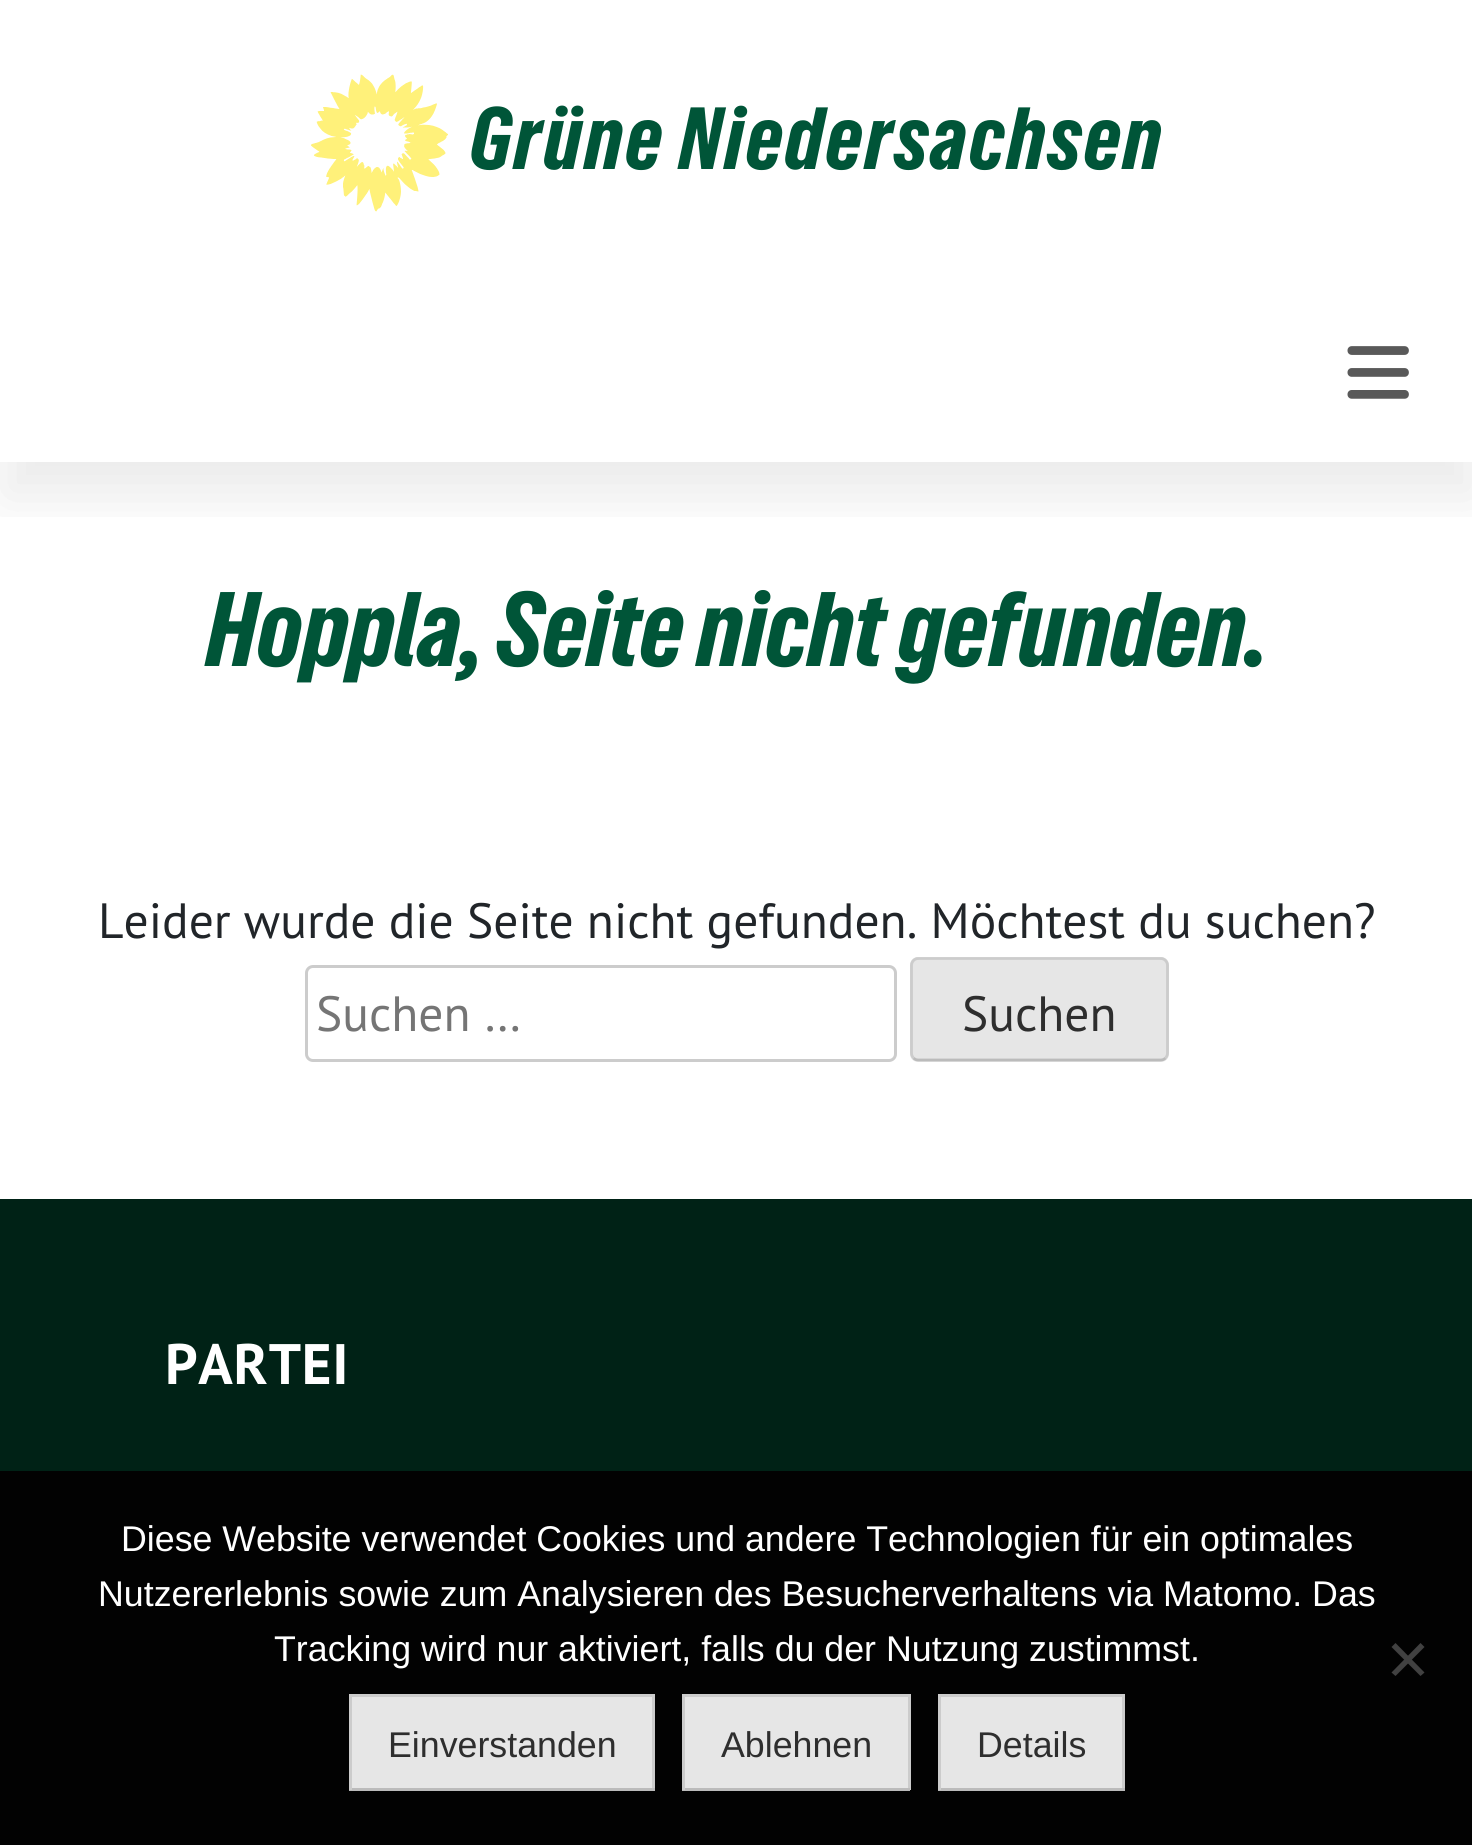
import math
import cairo


def use_color(cr, r, g, b):
  cr.set_source_rgb(r / 255, g / 255, b / 255)

def text(cr, x, y, s, family, size, color, bold=False, italic=False):
  cr.select_font_face(family, cairo.FONT_SLANT_ITALIC if italic else cairo.FONT_SLANT_NORMAL, cairo.FONT_WEIGHT_BOLD if bold else cairo.FONT_WEIGHT_NORMAL)
  cr.set_font_size(size)
  use_color(cr, *color)
  cr.move_to(x, y)
  cr.show_text(s)

def spaced_text(cr, x, y, s, letter, word):
  cr.move_to(x, y)
  for ch in s:
    cr.show_text(ch)
    cr.rel_move_to(letter + word * (ch == ' '), 0)

def box(cr, x, y, w, h, *color):
  use_color(cr, *color)
  cr.rectangle(x, y, w, h)
  cr.fill()

def round_rect(cr, x, y, w, h, r):
  cr.new_sub_path()
  for i, (u, v) in enumerate([(x + w - r, y + h - r), (x + r, y + h - r), (x + r, y + r), (x + w - r, y + r)]):
    cr.arc(u, v, r, i * math.pi / 2, (i + 1) * math.pi / 2)
  cr.close_path()

def shadow(cr, x, y, w, h, r, blur, alpha):
  cr.push_group_with_content(cairo.CONTENT_ALPHA)
  cr.set_operator(cairo.OPERATOR_SOURCE)
  for i in range(15, -16, -2):
    e = blur * i / 6
    if min(w, h) + 2 * e > 0:
      cr.set_source_rgba(0, 0, 0, alpha * math.erfc((i - 1) / 8.5) / 2)
      round_rect(cr, x - e, y - e, w + 2 * e, h + 2 * e, max(0, min(r + e + blur * .6, min(w, h) / 2 + e)))
      cr.fill()
  cr.mask(cr.pop_group())

def picture(cr, path, x, y, w, h):
  cr.save()
  cr.set_source_surface(cairo.ImageSurface.create_from_png(path), x, y)
  cr.rectangle(x, y, w, h)
  cr.fill()
  cr.restore()

def draw(cr):
  use_color(cr, 255, 255, 255)
  cr.paint()
  picture(cr, "img_01.png", 311, 74, 137, 138)
  cr.save()
  cr.rectangle(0, 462, 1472, 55)
  cr.clip()
  use_color(cr, 0, 0, 0)
  shadow(cr, 3, 322, 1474, 176, 0, 27.5, 0.08)
  cr.restore()
  picture(cr, "img_02.png", 1347, 346, 62, 53)
  round_rect(cr, 306.5, 966.5, 589, 94, 6.5)
  use_color(cr, 204, 204, 204)
  cr.set_line_width(3)
  cr.stroke()
  use_color(cr, 230, 230, 230)
  round_rect(cr, 910, 957, 259, 105, 8)
  cr.fill()
  cr.new_path()
  cr.move_to(1165.5, 1058)
  cr.curve_to(1164, 1059.5, 1162.5, 1060, 1160.5, 1060)
  cr.line_to(918.5, 1060)
  cr.curve_to(916.5, 1060, 915, 1059.5, 913.5, 1058)
  use_color(cr, 187, 187, 187)
  cr.set_line_width(2.8)
  cr.stroke()
  cr.new_path()
  cr.move_to(913.5, 1058)
  cr.curve_to(912.5, 1057, 911.5, 1055, 911.5, 1053)
  cr.line_to(911.5, 965)
  cr.curve_to(911.5, 963.5, 912.5, 961.5, 913.5, 960.5)
  cr.curve_to(915, 959, 916.5, 958.5, 918.5, 958.5)
  cr.line_to(1160.5, 958.5)
  cr.curve_to(1162.5, 958.5, 1164, 959, 1165.5, 960.5)
  cr.curve_to(1166.5, 961.5, 1167.5, 963.5, 1167.5, 965)
  cr.line_to(1167.5, 1053)
  cr.curve_to(1167.5, 1055, 1166.5, 1057, 1165.5, 1058)
  use_color(cr, 204, 204, 204)
  cr.stroke()
  box(cr, 0, 1199, 1472, 272, 0, 34, 22)
  box(cr, 0, 1471, 1472, 374, 2, 2, 2)
  use_color(cr, 65, 65, 65)
  cr.new_path()
  cr.move_to(1420.5, 1643)
  cr.line_to(1424.5, 1647)
  cr.line_to(1395.5, 1676)
  cr.line_to(1391.5, 1672.5)
  cr.close_path()
  cr.fill()
  cr.new_path()
  cr.move_to(1391.5, 1647)
  cr.line_to(1395.5, 1643)
  cr.line_to(1424.5, 1672.5)
  cr.line_to(1420.5, 1676)
  cr.close_path()
  cr.fill()
  box(cr, 352, 1697, 300, 91, 230, 230, 230)
  box(cr, 349, 1694, 306, 3, 204, 204, 204)
  box(cr, 652, 1694, 3, 96, 204, 204, 204)
  box(cr, 349, 1788, 306, 3, 187, 187, 187)
  box(cr, 349, 1694, 3, 96, 204, 204, 204)
  box(cr, 685, 1697, 223, 91, 230, 230, 230)
  box(cr, 682, 1694, 228, 3, 204, 204, 204)
  box(cr, 908, 1694, 3, 96, 204, 204, 204)
  box(cr, 682, 1788, 228, 3, 187, 187, 187)
  box(cr, 682, 1694, 3, 96, 204, 204, 204)
  box(cr, 941, 1697, 181, 91, 230, 230, 230)
  box(cr, 938, 1694, 187, 3, 204, 204, 204)
  box(cr, 1122, 1694, 3, 96, 204, 204, 204)
  box(cr, 938, 1788, 187, 3, 187, 187, 187)
  box(cr, 938, 1694, 3, 96, 204, 204, 204)
  cr.select_font_face("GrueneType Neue")
  cr.set_font_size(82.5)
  use_color(cr, 0, 85, 56)
  spaced_text(cr, 470, 169, "Grüne Niedersachsen", 2.75, 0)
  text(cr, 206, 666, "Hoppla, Seite nicht gefunden.", "GrueneType Neue", 99, (0, 85, 56))
  text(cr, 98, 938, "Leider wurde die Seite nicht gefunden. Möchtest du suchen?", "PT Sans", 49.5, (33, 37, 41))
  text(cr, 316, 1031, "Suchen …", "PT Sans", 49.5, (117, 117, 117))
  text(cr, 962, 1031, "Suchen", "PT Sans", 49.5, (46, 46, 46))
  cr.select_font_face("PT Sans", cairo.FONT_SLANT_NORMAL, cairo.FONT_WEIGHT_BOLD)
  cr.set_font_size(57)
  use_color(cr, 255, 255, 255)
  spaced_text(cr, 165, 1384, "PARTEI", 0.75, 0)
  text(cr, 121, 1551, "Diese Website verwendet Cookies und andere Technologien für ein optimales", "Liberation Sans", 35.75, (255, 255, 255))
  text(cr, 98, 1606, "Nutzererlebnis sowie zum Analysieren des Besucherverhaltens via Matomo. Das", "Liberation Sans", 35.75, (255, 255, 255))
  text(cr, 274, 1661, "Tracking wird nur aktiviert, falls du der Nutzung zustimmst.", "Liberation Sans", 35.75, (255, 255, 255))
  text(cr, 388, 1757, "Einverstanden", "Liberation Sans", 35.75, (46, 46, 46))
  text(cr, 721, 1757, "Ablehnen", "Liberation Sans", 35.75, (46, 46, 46))
  text(cr, 977, 1757, "Details", "Liberation Sans", 35.75, (46, 46, 46))


surface = cairo.ImageSurface(cairo.FORMAT_RGB24, 1472, 1845)
cr = cairo.Context(surface)
options = cairo.FontOptions()
options.set_hint_metrics(cairo.HINT_METRICS_OFF)
options.set_hint_style(cairo.HINT_STYLE_NONE)
cr.set_font_options(options)
cr.set_miter_limit(4)
draw(cr)
surface.write_to_png("out.png")
